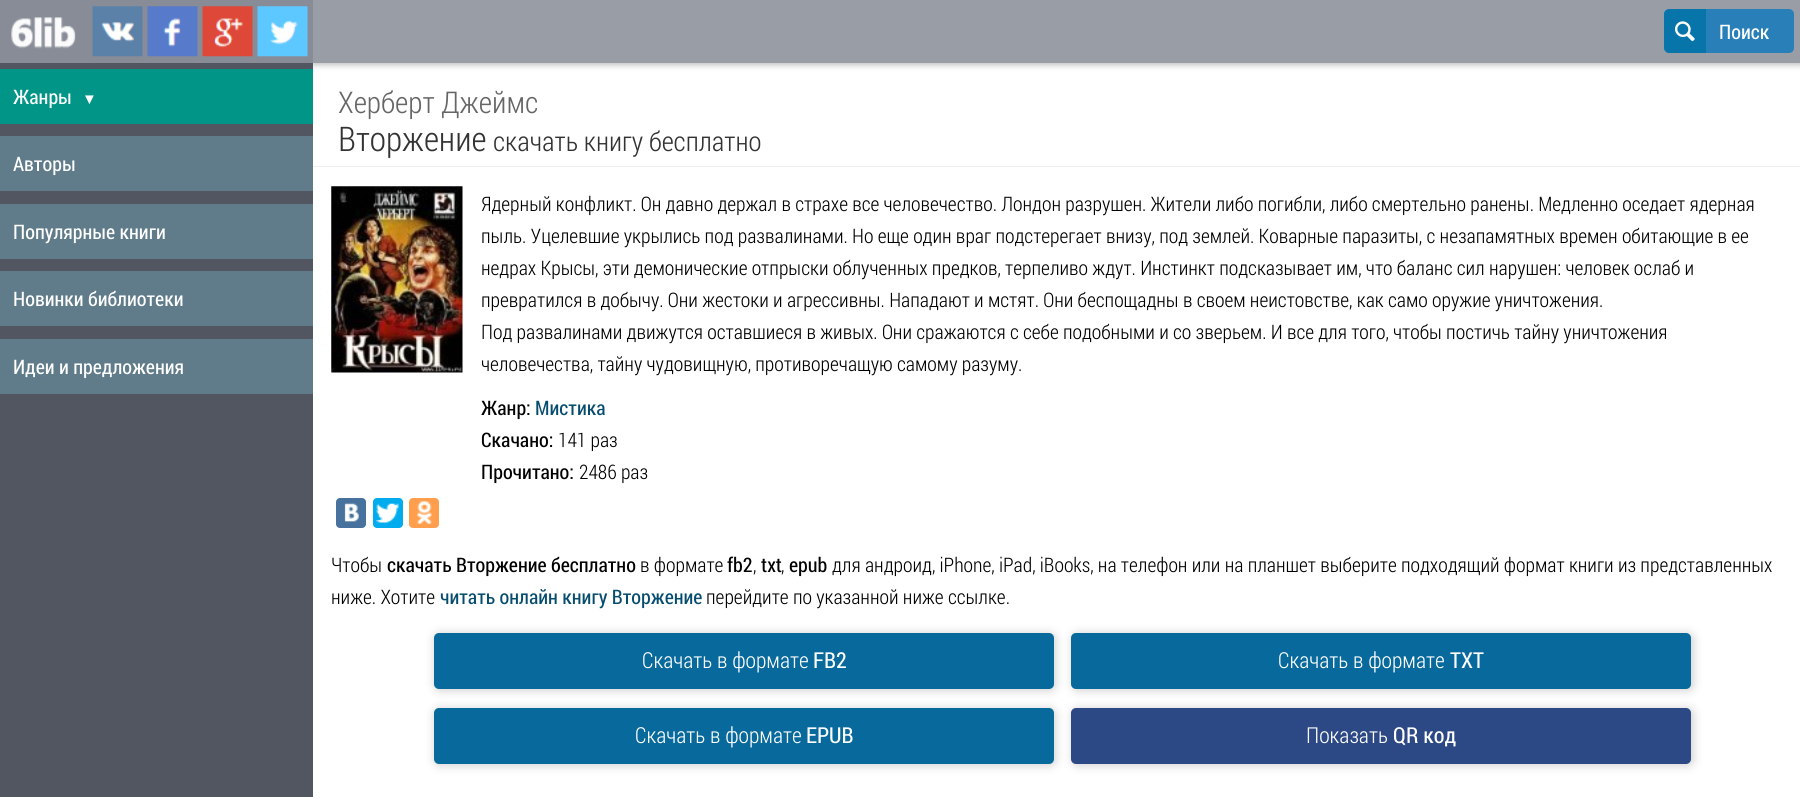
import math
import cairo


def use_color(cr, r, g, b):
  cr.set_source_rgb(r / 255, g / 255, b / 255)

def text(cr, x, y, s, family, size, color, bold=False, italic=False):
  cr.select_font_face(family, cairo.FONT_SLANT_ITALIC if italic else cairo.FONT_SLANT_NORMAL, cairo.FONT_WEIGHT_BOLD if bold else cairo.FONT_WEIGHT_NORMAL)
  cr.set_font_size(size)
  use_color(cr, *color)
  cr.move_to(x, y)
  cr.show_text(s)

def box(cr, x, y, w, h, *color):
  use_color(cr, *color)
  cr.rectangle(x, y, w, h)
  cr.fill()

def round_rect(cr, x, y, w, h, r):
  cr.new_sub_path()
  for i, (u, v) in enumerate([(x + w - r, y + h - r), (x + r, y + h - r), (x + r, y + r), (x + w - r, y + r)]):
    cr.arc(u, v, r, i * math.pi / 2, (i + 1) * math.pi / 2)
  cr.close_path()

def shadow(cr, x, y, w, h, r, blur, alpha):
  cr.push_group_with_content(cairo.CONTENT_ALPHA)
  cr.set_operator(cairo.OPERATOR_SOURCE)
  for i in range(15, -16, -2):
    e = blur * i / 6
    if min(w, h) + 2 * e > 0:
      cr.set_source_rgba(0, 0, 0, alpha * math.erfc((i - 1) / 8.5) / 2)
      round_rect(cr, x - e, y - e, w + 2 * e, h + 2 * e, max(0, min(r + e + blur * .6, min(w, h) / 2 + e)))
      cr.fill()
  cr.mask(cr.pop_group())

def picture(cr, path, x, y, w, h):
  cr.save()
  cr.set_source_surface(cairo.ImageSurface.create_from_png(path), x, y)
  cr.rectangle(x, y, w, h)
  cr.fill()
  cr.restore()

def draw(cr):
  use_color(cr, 255, 255, 255)
  cr.paint()
  use_color(cr, 0, 0, 0)
  shadow(cr, 313, 3, 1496, 62, 0, 3, 0.26)
  box(cr, 0, 63, 313, 734, 82, 86, 97)
  box(cr, 0, 0, 313, 63, 136, 140, 151)
  picture(cr, "img_01.png", 11, 17, 65, 32)
  picture(cr, "img_02.png", 92, 6, 51, 51)
  picture(cr, "img_03.png", 147, 6, 51, 51)
  picture(cr, "img_04.png", 202, 6, 51, 51)
  picture(cr, "img_05.png", 257, 6, 51, 51)
  box(cr, 0, 69, 313, 55, 1, 149, 135)
  box(cr, 0, 136, 313, 55, 96, 124, 138)
  box(cr, 0, 204, 313, 55, 96, 124, 138)
  box(cr, 0, 271, 313, 55, 96, 124, 138)
  box(cr, 0, 339, 313, 55, 96, 124, 138)
  box(cr, 313, 0, 1487, 63, 153, 157, 166)
  use_color(cr, 41, 128, 185)
  round_rect(cr, 1664, 9, 130, 44, 5)
  cr.fill()
  use_color(cr, 7, 117, 170)
  cr.new_path()
  cr.move_to(1670, 9)
  cr.line_to(1706, 9)
  cr.line_to(1706, 53)
  cr.line_to(1670, 53)
  cr.curve_to(1666.5, 53, 1664, 50.5, 1664, 47)
  cr.line_to(1664, 15)
  cr.curve_to(1664, 11.5, 1666.5, 9, 1670, 9)
  cr.close_path()
  cr.fill()
  picture(cr, "img_06.png", 1675, 21, 20, 21)
  box(cr, 313, 166, 1487, 1, 238, 238, 238)
  picture(cr, "img_07.png", 331, 186, 132, 187)
  use_color(cr, 72, 114, 158)
  round_rect(cr, 336, 498, 30, 30, 4)
  cr.fill()
  picture(cr, "img_08.png", 344, 503, 15, 19)
  use_color(cr, 0, 172, 237)
  round_rect(cr, 373, 498, 30, 30, 4)
  cr.fill()
  picture(cr, "img_09.png", 376, 503, 23, 20)
  use_color(cr, 255, 159, 77)
  round_rect(cr, 409, 498, 30, 30, 4)
  cr.fill()
  picture(cr, "img_10.png", 417, 501, 15, 23)
  use_color(cr, 204, 204, 204)
  shadow(cr, 435, 634, 620, 56, 5, 5, 1)
  use_color(cr, 8, 106, 156)
  round_rect(cr, 434, 633, 620, 56, 5)
  cr.fill()
  use_color(cr, 204, 204, 204)
  shadow(cr, 1073, 634, 620, 56, 5, 5, 1)
  use_color(cr, 8, 106, 156)
  round_rect(cr, 1071, 633, 620, 56, 5)
  cr.fill()
  use_color(cr, 204, 204, 204)
  shadow(cr, 435, 709, 620, 56, 5, 5, 1)
  use_color(cr, 8, 106, 156)
  round_rect(cr, 434, 708, 620, 56, 5)
  cr.fill()
  use_color(cr, 204, 204, 204)
  shadow(cr, 1073, 709, 620, 56, 5, 5, 1)
  use_color(cr, 44, 73, 133)
  round_rect(cr, 1071, 708, 620, 56, 5)
  cr.fill()
  text(cr, 13, 104, "Жанры", "Roboto Condensed", 20, (255, 255, 255))
  text(cr, 82, 104, "▼", "Liberation Serif", 15, (255, 255, 255))
  text(cr, 13, 171, "Авторы", "Roboto Condensed", 20, (255, 255, 255))
  text(cr, 13, 239, "Популярные книги", "Roboto Condensed", 20, (255, 255, 255))
  text(cr, 13, 306, "Новинки библиотеки", "Roboto Condensed", 20, (255, 255, 255))
  text(cr, 13, 374, "Идеи и предложения", "Roboto Condensed", 20, (255, 255, 255))
  text(cr, 1719, 39, "Поиск", "Roboto Condensed", 20, (255, 255, 255))
  text(cr, 338, 113, "Херберт Джеймс", "Roboto Condensed Light", 30, (102, 102, 102))
  text(cr, 338, 151, "Вторжение", "Roboto Condensed Light", 34, (51, 51, 51))
  text(cr, 493, 151, "скачать книгу бесплатно", "Roboto Condensed Light", 27.25, (51, 51, 51))
  text(cr, 481, 211, "Ядерный конфликт. Он давно держал в страхе все человечество. Лондон разрушен. Жители либо погибли, либо смертельно ранены. Медленно оседает ядерная", "Roboto Condensed Light", 20, (0, 0, 0))
  text(cr, 481, 243, "пыль. Уцелевшие укрылись под развалинами. Но еще один враг подстерегает внизу, под землей. Коварные паразиты, с незапамятных времен обитающие в ее", "Roboto Condensed Light", 20, (0, 0, 0))
  text(cr, 481, 275, "недрах Крысы, эти демонические отпрыски облученных предков, терпеливо ждут. Инстинкт подсказывает им, что баланс сил нарушен: человек ослаб и", "Roboto Condensed Light", 20, (0, 0, 0))
  text(cr, 481, 307, "превратился в добычу. Они жестоки и агрессивны. Нападают и мстят. Они беспощадны в своем неистовстве, как само оружие уничтожения.", "Roboto Condensed Light", 20, (0, 0, 0))
  text(cr, 481, 339, "Под развалинами движутся оставшиеся в живых. Они сражаются с себе подобными и со зверьем. И все для того, чтобы постичь тайну уничтожения", "Roboto Condensed Light", 20, (0, 0, 0))
  text(cr, 481, 371, "человечества, тайну чудовищную, противоречащую самому разуму.", "Roboto Condensed Light", 20, (0, 0, 0))
  text(cr, 481, 415, "Жанр:", "Roboto Condensed", 20, (0, 0, 0))
  text(cr, 535, 415, "Мистика", "Roboto Condensed", 20, (5, 76, 110))
  text(cr, 481, 447, "Скачано:", "Roboto Condensed", 20, (0, 0, 0))
  text(cr, 558, 447, "141 раз", "Roboto Condensed Light", 20, (0, 0, 0))
  text(cr, 481, 479, "Прочитано:", "Roboto Condensed", 20, (0, 0, 0))
  text(cr, 579, 479, "2486 раз", "Roboto Condensed Light", 20, (0, 0, 0))
  text(cr, 331, 572, "Чтобы", "Roboto Condensed Light", 20, (0, 0, 0))
  text(cr, 387, 572, "скачать Вторжение бесплатно", "Roboto Condensed", 20, (0, 0, 0))
  text(cr, 640, 572, "в формате", "Roboto Condensed Light", 20, (0, 0, 0))
  text(cr, 727, 572, "fb2", "Roboto Condensed", 20, (0, 0, 0))
  text(cr, 753, 572, ",", "Roboto Condensed Light", 20, (0, 0, 0))
  text(cr, 761, 572, "txt", "Roboto Condensed", 20, (0, 0, 0))
  text(cr, 781, 572, ",", "Roboto Condensed Light", 20, (0, 0, 0))
  text(cr, 789, 572, "epub", "Roboto Condensed", 20, (0, 0, 0))
  text(cr, 832, 572, "для андроид, iPhone, iPad, iBooks, на телефон или на планшет выберите подходящий формат книги из представленных", "Roboto Condensed Light", 20, (0, 0, 0))
  text(cr, 331, 604, "ниже. Хотите", "Roboto Condensed Light", 20, (0, 0, 0))
  text(cr, 440, 604, "читать онлайн книгу Вторжение", "Roboto Condensed", 20, (5, 76, 110))
  text(cr, 706, 604, "перейдите по указанной ниже ссылке.", "Roboto Condensed Light", 20, (0, 0, 0))
  text(cr, 642, 668, "Скачать в формате", "Roboto Condensed Light", 22, (255, 255, 255))
  text(cr, 813, 668, "FB2", "Roboto Condensed", 22, (255, 255, 255))
  text(cr, 1278, 668, "Скачать в формате", "Roboto Condensed Light", 22, (255, 255, 255))
  text(cr, 1450, 668, "TXT", "Roboto Condensed", 22, (255, 255, 255))
  text(cr, 635, 743, "Скачать в формате", "Roboto Condensed Light", 22, (255, 255, 255))
  text(cr, 806, 743, "EPUB", "Roboto Condensed", 22, (255, 255, 255))
  text(cr, 1306, 743, "Показать", "Roboto Condensed Light", 22, (255, 255, 255))
  text(cr, 1393, 743, "QR код", "Roboto Condensed", 22, (255, 255, 255))


surface = cairo.ImageSurface(cairo.FORMAT_RGB24, 1800, 797)
cr = cairo.Context(surface)
options = cairo.FontOptions()
options.set_hint_metrics(cairo.HINT_METRICS_OFF)
options.set_hint_style(cairo.HINT_STYLE_NONE)
cr.set_font_options(options)
cr.set_miter_limit(4)
draw(cr)
surface.write_to_png("out.png")
